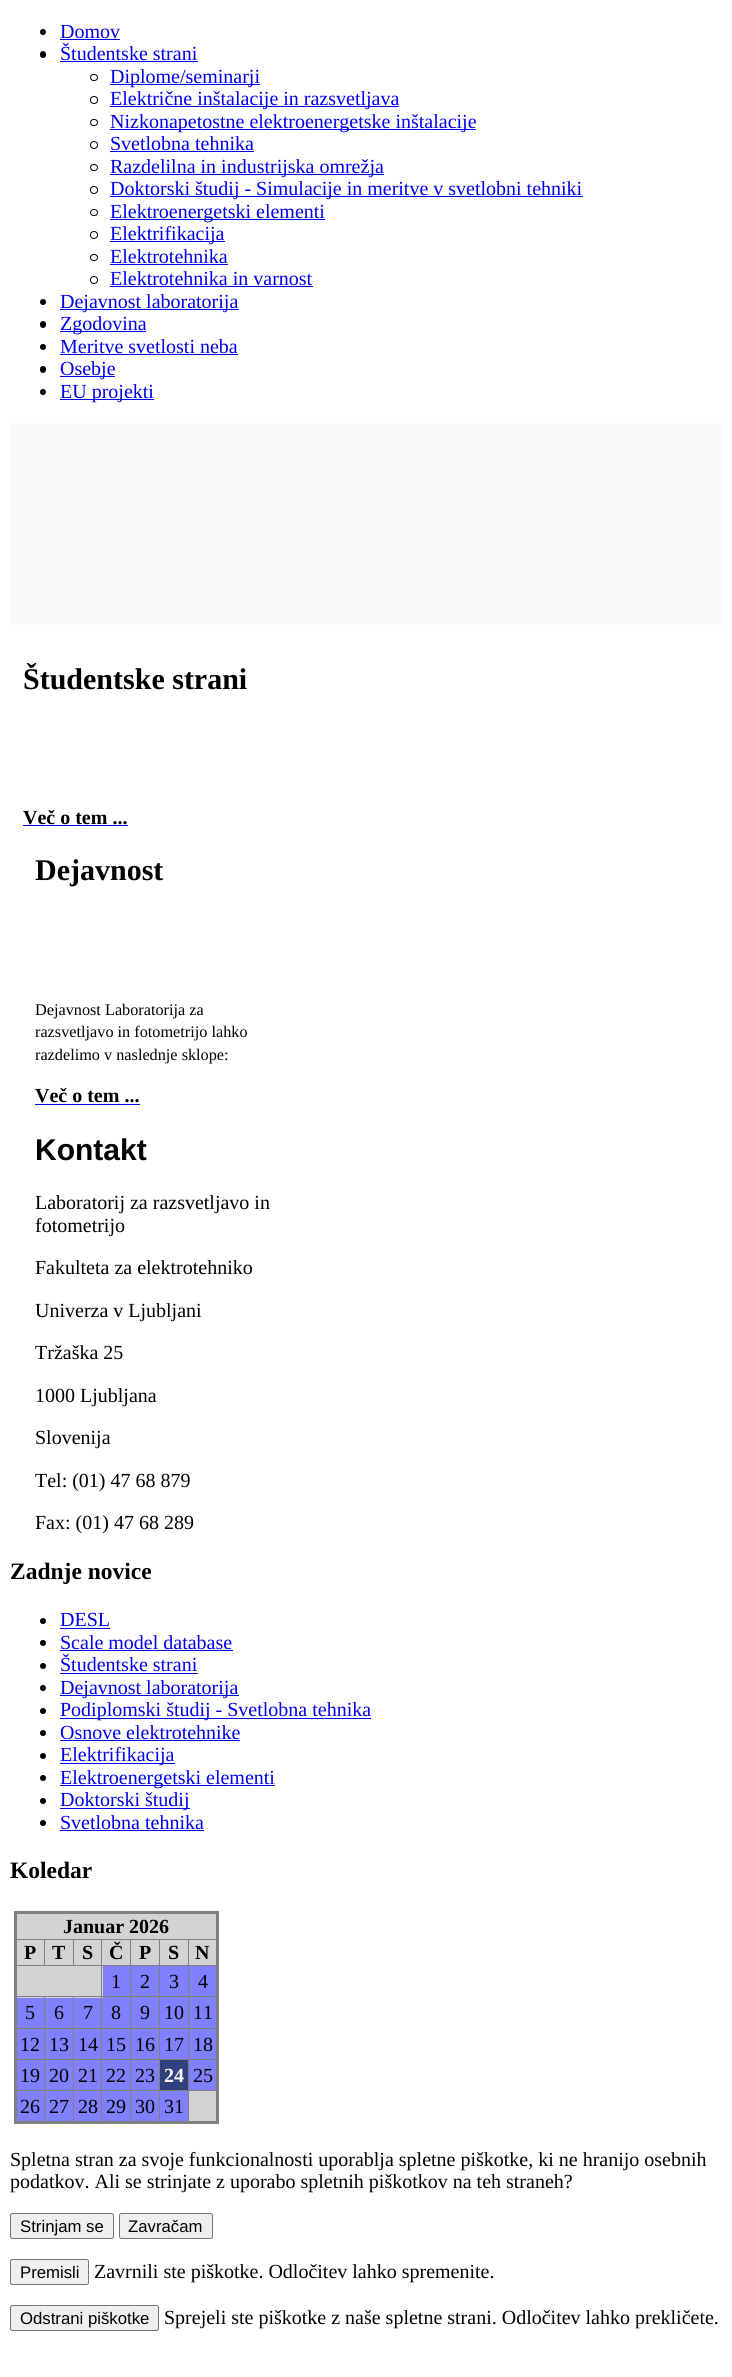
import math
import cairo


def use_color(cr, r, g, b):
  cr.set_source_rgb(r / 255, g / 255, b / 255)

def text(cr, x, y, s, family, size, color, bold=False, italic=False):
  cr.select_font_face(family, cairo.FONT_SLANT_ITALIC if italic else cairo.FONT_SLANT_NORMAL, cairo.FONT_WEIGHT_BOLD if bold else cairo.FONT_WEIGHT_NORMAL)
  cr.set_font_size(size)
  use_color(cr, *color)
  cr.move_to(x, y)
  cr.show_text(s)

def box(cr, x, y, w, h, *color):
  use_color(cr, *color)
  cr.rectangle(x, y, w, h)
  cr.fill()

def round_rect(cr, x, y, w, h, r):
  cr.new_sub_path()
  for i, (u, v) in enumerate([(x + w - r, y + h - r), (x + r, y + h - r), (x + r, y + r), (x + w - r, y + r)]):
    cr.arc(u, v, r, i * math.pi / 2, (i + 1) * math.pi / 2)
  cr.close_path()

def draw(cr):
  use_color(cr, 255, 255, 255)
  cr.paint()
  use_color(cr, 0, 0, 0)
  cr.arc(43, 32, 3, 0, 2 * math.pi)
  cr.fill()
  box(cr, 60, 39, 60, 1, 0, 0, 238)
  use_color(cr, 0, 0, 0)
  round_rect(cr, 40, 51, 6, 7, 3)
  cr.fill()
  box(cr, 60, 61, 138, 1, 0, 0, 238)
  round_rect(cr, 90.5, 74.5, 7, 6, 3)
  use_color(cr, 0, 0, 0)
  cr.set_line_width(1)
  cr.stroke()
  box(cr, 110, 84, 150, 1, 0, 0, 238)
  cr.arc(94, 100, 3.5, 0, 2 * math.pi)
  use_color(cr, 0, 0, 0)
  cr.stroke()
  box(cr, 110, 106, 289, 1, 0, 0, 238)
  round_rect(cr, 90.5, 119.5, 7, 6, 3)
  use_color(cr, 0, 0, 0)
  cr.stroke()
  box(cr, 110, 129, 366, 1, 0, 0, 238)
  cr.arc(94, 145, 3.5, 0, 2 * math.pi)
  use_color(cr, 0, 0, 0)
  cr.stroke()
  box(cr, 110, 151, 144, 1, 0, 0, 238)
  round_rect(cr, 90.5, 164.5, 7, 6, 3)
  use_color(cr, 0, 0, 0)
  cr.stroke()
  box(cr, 110, 174, 274, 1, 0, 0, 238)
  cr.arc(94, 190, 3.5, 0, 2 * math.pi)
  use_color(cr, 0, 0, 0)
  cr.stroke()
  box(cr, 110, 196, 473, 1, 0, 0, 238)
  round_rect(cr, 90.5, 209.5, 7, 6, 3)
  use_color(cr, 0, 0, 0)
  cr.stroke()
  box(cr, 110, 219, 215, 1, 0, 0, 238)
  cr.arc(94, 235, 3.5, 0, 2 * math.pi)
  use_color(cr, 0, 0, 0)
  cr.stroke()
  box(cr, 110, 241, 115, 1, 0, 0, 238)
  round_rect(cr, 90.5, 254.5, 7, 6, 3)
  use_color(cr, 0, 0, 0)
  cr.stroke()
  box(cr, 110, 264, 118, 1, 0, 0, 238)
  cr.arc(94, 280, 3.5, 0, 2 * math.pi)
  use_color(cr, 0, 0, 0)
  cr.stroke()
  box(cr, 110, 286, 203, 1, 0, 0, 238)
  use_color(cr, 0, 0, 0)
  cr.arc(43, 302, 3, 0, 2 * math.pi)
  cr.fill()
  box(cr, 60, 309, 179, 1, 0, 0, 238)
  use_color(cr, 0, 0, 0)
  round_rect(cr, 40, 321, 6, 7, 3)
  cr.fill()
  box(cr, 60, 331, 86, 1, 0, 0, 238)
  use_color(cr, 0, 0, 0)
  cr.arc(43, 347, 3, 0, 2 * math.pi)
  cr.fill()
  box(cr, 60, 354, 178, 1, 0, 0, 238)
  use_color(cr, 0, 0, 0)
  round_rect(cr, 40, 366, 6, 7, 3)
  cr.fill()
  box(cr, 60, 376, 55, 1, 0, 0, 238)
  use_color(cr, 0, 0, 0)
  cr.arc(43, 392, 3, 0, 2 * math.pi)
  cr.fill()
  box(cr, 60, 399, 94, 1, 0, 0, 238)
  box(cr, 10, 423, 713, 202, 249, 250, 251)
  box(cr, 23, 825, 105, 1, 0, 0, 238)
  box(cr, 35, 1104, 105, 1, 0, 0, 238)
  use_color(cr, 0, 0, 0)
  cr.arc(43, 1621, 3, 0, 2 * math.pi)
  cr.fill()
  box(cr, 60, 1628, 50, 1, 0, 0, 238)
  use_color(cr, 0, 0, 0)
  cr.arc(43, 1643, 3, 0, 2 * math.pi)
  cr.fill()
  box(cr, 60, 1650, 173, 1, 0, 0, 238)
  use_color(cr, 0, 0, 0)
  cr.arc(43, 1666, 3, 0, 2 * math.pi)
  cr.fill()
  box(cr, 60, 1673, 138, 1, 0, 0, 238)
  use_color(cr, 0, 0, 0)
  cr.arc(43, 1688, 3, 0, 2 * math.pi)
  cr.fill()
  box(cr, 60, 1695, 179, 1, 0, 0, 238)
  use_color(cr, 0, 0, 0)
  cr.arc(43, 1711, 3, 0, 2 * math.pi)
  cr.fill()
  box(cr, 60, 1718, 311, 1, 0, 0, 238)
  use_color(cr, 0, 0, 0)
  cr.arc(43, 1733, 3, 0, 2 * math.pi)
  cr.fill()
  box(cr, 60, 1740, 180, 1, 0, 0, 238)
  use_color(cr, 0, 0, 0)
  cr.arc(43, 1756, 3, 0, 2 * math.pi)
  cr.fill()
  box(cr, 60, 1763, 115, 1, 0, 0, 238)
  use_color(cr, 0, 0, 0)
  cr.arc(43, 1778, 3, 0, 2 * math.pi)
  cr.fill()
  box(cr, 60, 1785, 215, 1, 0, 0, 238)
  use_color(cr, 0, 0, 0)
  cr.arc(43, 1801, 3, 0, 2 * math.pi)
  cr.fill()
  box(cr, 60, 1808, 130, 1, 0, 0, 238)
  use_color(cr, 0, 0, 0)
  cr.arc(43, 1823, 3, 0, 2 * math.pi)
  cr.fill()
  box(cr, 60, 1830, 144, 1, 0, 0, 238)
  box(cr, 17, 1966, 199, 155, 128, 128, 255)
  box(cr, 14, 1911, 205, 3, 128, 128, 128)
  box(cr, 188, 1939, 31, 1, 128, 128, 128)
  box(cr, 188, 1965, 31, 1, 128, 128, 128)
  box(cr, 188, 1996, 31, 1, 128, 128, 128)
  box(cr, 188, 2028, 31, 1, 128, 128, 128)
  box(cr, 188, 2059, 31, 1, 128, 128, 128)
  box(cr, 188, 2090, 31, 1, 128, 128, 128)
  box(cr, 216, 1911, 3, 213, 128, 128, 128)
  box(cr, 188, 2090, 1, 34, 128, 128, 128)
  box(cr, 159, 2090, 30, 1, 128, 128, 128)
  box(cr, 159, 2090, 1, 34, 128, 128, 128)
  box(cr, 130, 2090, 30, 1, 128, 128, 128)
  box(cr, 130, 2090, 1, 34, 128, 128, 128)
  box(cr, 101, 2090, 30, 1, 128, 128, 128)
  box(cr, 101, 2090, 1, 34, 128, 128, 128)
  box(cr, 73, 2090, 30, 1, 128, 128, 128)
  box(cr, 73, 2090, 1, 34, 128, 128, 128)
  box(cr, 44, 2090, 30, 1, 128, 128, 128)
  box(cr, 44, 2090, 1, 34, 128, 128, 128)
  box(cr, 14, 2121, 205, 3, 128, 128, 128)
  box(cr, 188, 2059, 1, 32, 128, 128, 128)
  box(cr, 159, 2059, 30, 1, 128, 128, 128)
  box(cr, 188, 2028, 1, 32, 128, 128, 128)
  box(cr, 159, 2028, 30, 1, 128, 128, 128)
  box(cr, 188, 1996, 1, 33, 128, 128, 128)
  box(cr, 159, 1996, 30, 1, 128, 128, 128)
  box(cr, 188, 1965, 1, 33, 128, 128, 128)
  box(cr, 159, 1965, 30, 1, 128, 128, 128)
  box(cr, 188, 1939, 1, 27, 128, 128, 128)
  box(cr, 159, 1939, 30, 1, 128, 128, 128)
  box(cr, 159, 2059, 1, 32, 128, 128, 128)
  box(cr, 130, 2059, 30, 1, 128, 128, 128)
  box(cr, 159, 2028, 1, 32, 128, 128, 128)
  box(cr, 130, 2028, 30, 1, 128, 128, 128)
  box(cr, 159, 1996, 1, 33, 128, 128, 128)
  box(cr, 130, 1996, 30, 1, 128, 128, 128)
  box(cr, 159, 1965, 1, 33, 128, 128, 128)
  box(cr, 130, 1965, 30, 1, 128, 128, 128)
  box(cr, 159, 1939, 1, 27, 128, 128, 128)
  box(cr, 130, 1939, 30, 1, 128, 128, 128)
  box(cr, 17, 1966, 86, 32, 209, 211, 212)
  box(cr, 130, 2059, 1, 32, 128, 128, 128)
  box(cr, 101, 2059, 30, 1, 128, 128, 128)
  box(cr, 130, 2028, 1, 32, 128, 128, 128)
  box(cr, 101, 2028, 30, 1, 128, 128, 128)
  box(cr, 130, 1996, 1, 33, 128, 128, 128)
  box(cr, 101, 1996, 30, 1, 128, 128, 128)
  box(cr, 130, 1965, 1, 33, 128, 128, 128)
  box(cr, 101, 1965, 30, 1, 128, 128, 128)
  box(cr, 130, 1939, 1, 27, 128, 128, 128)
  box(cr, 101, 1939, 30, 1, 128, 128, 128)
  box(cr, 74, 1940, 56, 25, 209, 211, 212)
  box(cr, 101, 2059, 1, 32, 128, 128, 128)
  box(cr, 73, 2059, 30, 1, 128, 128, 128)
  box(cr, 101, 2028, 1, 32, 128, 128, 128)
  box(cr, 73, 2028, 30, 1, 128, 128, 128)
  box(cr, 101, 1996, 1, 33, 128, 128, 128)
  box(cr, 73, 1996, 30, 1, 128, 128, 128)
  box(cr, 101, 1965, 1, 33, 128, 128, 128)
  box(cr, 15, 1965, 88, 1, 128, 128, 128)
  box(cr, 101, 1939, 1, 27, 128, 128, 128)
  box(cr, 73, 1939, 30, 1, 128, 128, 128)
  box(cr, 73, 1939, 1, 27, 128, 128, 128)
  box(cr, 44, 1939, 30, 1, 128, 128, 128)
  box(cr, 44, 1939, 1, 27, 128, 128, 128)
  box(cr, 15, 1939, 30, 1, 128, 128, 128)
  box(cr, 73, 2059, 1, 32, 128, 128, 128)
  box(cr, 44, 2059, 30, 1, 128, 128, 128)
  box(cr, 73, 2028, 1, 32, 128, 128, 128)
  box(cr, 44, 2028, 30, 1, 128, 128, 128)
  box(cr, 73, 1996, 1, 33, 128, 128, 128)
  box(cr, 44, 1996, 30, 1, 128, 128, 128)
  box(cr, 15, 2090, 30, 1, 128, 128, 128)
  box(cr, 44, 2059, 1, 32, 128, 128, 128)
  box(cr, 15, 2059, 30, 1, 128, 128, 128)
  box(cr, 44, 2028, 1, 32, 128, 128, 128)
  box(cr, 15, 2028, 30, 1, 128, 128, 128)
  box(cr, 44, 1996, 1, 33, 128, 128, 128)
  box(cr, 15, 1996, 30, 1, 128, 128, 128)
  box(cr, 14, 1911, 3, 213, 128, 128, 128)
  box(cr, 17, 1914, 199, 25, 209, 211, 212)
  box(cr, 17, 1940, 27, 25, 209, 211, 212)
  box(cr, 45, 1940, 28, 25, 209, 211, 212)
  box(cr, 131, 1940, 28, 25, 209, 211, 212)
  box(cr, 160, 1940, 28, 25, 209, 211, 212)
  box(cr, 189, 1940, 27, 25, 209, 211, 212)
  box(cr, 160, 2060, 28, 30, 49, 65, 123)
  box(cr, 189, 2091, 27, 30, 209, 211, 212)
  use_color(cr, 239, 239, 239)
  round_rect(cr, 10.5, 2213.5, 103, 25, 2)
  cr.fill_preserve()
  use_color(cr, 118, 118, 118)
  cr.stroke()
  use_color(cr, 239, 239, 239)
  round_rect(cr, 119.5, 2213.5, 93, 25, 2)
  cr.fill_preserve()
  use_color(cr, 118, 118, 118)
  cr.stroke()
  use_color(cr, 239, 239, 239)
  round_rect(cr, 10.5, 2259.5, 78, 25, 2)
  cr.fill_preserve()
  use_color(cr, 118, 118, 118)
  cr.stroke()
  use_color(cr, 239, 239, 239)
  round_rect(cr, 10.5, 2305.5, 148, 25, 2)
  cr.fill_preserve()
  use_color(cr, 118, 118, 118)
  cr.stroke()
  text(cr, 60, 38, "Domov", "Liberation Serif", 20, (0, 0, 238))
  text(cr, 60, 60, "Študentske strani", "Liberation Serif", 20, (0, 0, 238))
  text(cr, 110, 83, "Diplome/seminarji", "Liberation Serif", 20, (0, 0, 238))
  text(cr, 110, 105, "Električne inštalacije in razsvetljava", "Liberation Serif", 20, (0, 0, 238))
  text(cr, 110, 128, "Nizkonapetostne elektroenergetske inštalacije", "Liberation Serif", 20, (0, 0, 238))
  text(cr, 110, 150, "Svetlobna tehnika", "Liberation Serif", 20, (0, 0, 238))
  text(cr, 110, 173, "Razdelilna in industrijska omrežja", "Liberation Serif", 20, (0, 0, 238))
  text(cr, 110, 195, "Doktorski študij - Simulacije in meritve v svetlobni tehniki", "Liberation Serif", 20, (0, 0, 238))
  text(cr, 110, 218, "Elektroenergetski elementi", "Liberation Serif", 20, (0, 0, 238))
  text(cr, 110, 240, "Elektrifikacija", "Liberation Serif", 20, (0, 0, 238))
  text(cr, 110, 263, "Elektrotehnika", "Liberation Serif", 20, (0, 0, 238))
  text(cr, 110, 285, "Elektrotehnika in varnost", "Liberation Serif", 20, (0, 0, 238))
  text(cr, 60, 308, "Dejavnost laboratorija", "Liberation Serif", 20, (0, 0, 238))
  text(cr, 60, 330, "Zgodovina", "Liberation Serif", 20, (0, 0, 238))
  text(cr, 60, 353, "Meritve svetlosti neba", "Liberation Serif", 20, (0, 0, 238))
  text(cr, 60, 375, "Osebje", "Liberation Serif", 20, (0, 0, 238))
  text(cr, 60, 398, "EU projekti", "Liberation Serif", 20, (0, 0, 238))
  text(cr, 23, 689, "Študentske strani", "Liberation Serif", 30, (0, 0, 0), bold=True)
  text(cr, 23, 824, "Več o tem ...", "Liberation Serif", 20, (0, 0, 0), bold=True)
  text(cr, 35, 880, "Dejavnost", "Liberation Serif", 30, (0, 0, 0), bold=True)
  text(cr, 35, 1015, "Dejavnost Laboratorija za", "Liberation Serif", 16.25, (0, 0, 0))
  text(cr, 35, 1037, "razsvetljavo in fotometrijo lahko", "Liberation Serif", 16.25, (0, 0, 0))
  text(cr, 35, 1060, "razdelimo v naslednje sklope:", "Liberation Serif", 16.25, (0, 0, 0))
  text(cr, 35, 1102, "Več o tem ...", "Liberation Serif", 20, (0, 0, 0), bold=True)
  text(cr, 35, 1160, "Kontakt", "Liberation Sans", 30, (0, 0, 0), bold=True)
  text(cr, 35, 1209, "Laboratorij za razsvetljavo in", "Liberation Serif", 20, (0, 0, 0))
  text(cr, 35, 1232, "fotometrijo", "Liberation Serif", 20, (0, 0, 0))
  text(cr, 35, 1274, "Fakulteta za elektrotehniko", "Liberation Serif", 20, (0, 0, 0))
  text(cr, 35, 1317, "Univerza v Ljubljani", "Liberation Serif", 20, (0, 0, 0))
  text(cr, 35, 1359, "Tržaška 25", "Liberation Serif", 20, (0, 0, 0))
  text(cr, 35, 1402, "1000 Ljubljana", "Liberation Serif", 20, (0, 0, 0))
  text(cr, 35, 1444, "Slovenija", "Liberation Serif", 20, (0, 0, 0))
  text(cr, 35, 1487, "Tel: (01) 47 68 879", "Liberation Serif", 20, (0, 0, 0))
  text(cr, 35, 1529, "Fax: (01) 47 68 289", "Liberation Serif", 20, (0, 0, 0))
  text(cr, 10, 1579, "Zadnje novice", "Liberation Serif", 23.5, (0, 0, 0), bold=True)
  text(cr, 60, 1626, "DESL", "Liberation Serif", 20, (0, 0, 238))
  text(cr, 60, 1649, "Scale model database", "Liberation Serif", 20, (0, 0, 238))
  text(cr, 60, 1671, "Študentske strani", "Liberation Serif", 20, (0, 0, 238))
  text(cr, 60, 1694, "Dejavnost laboratorija", "Liberation Serif", 20, (0, 0, 238))
  text(cr, 60, 1716, "Podiplomski študij - Svetlobna tehnika", "Liberation Serif", 20, (0, 0, 238))
  text(cr, 60, 1739, "Osnove elektrotehnike", "Liberation Serif", 20, (0, 0, 238))
  text(cr, 60, 1761, "Elektrifikacija", "Liberation Serif", 20, (0, 0, 238))
  text(cr, 60, 1784, "Elektroenergetski elementi", "Liberation Serif", 20, (0, 0, 238))
  text(cr, 60, 1806, "Doktorski študij", "Liberation Serif", 20, (0, 0, 238))
  text(cr, 60, 1829, "Svetlobna tehnika", "Liberation Serif", 20, (0, 0, 238))
  text(cr, 10, 1878, "Koledar", "Liberation Serif", 23.5, (0, 0, 0), bold=True)
  text(cr, 63, 1933, "Januar 2026", "Liberation Serif", 20, (0, 0, 0), bold=True)
  text(cr, 24, 1959, "P", "Liberation Serif", 20, (0, 0, 0), bold=True)
  text(cr, 52, 1959, "T", "Liberation Serif", 20, (0, 0, 0), bold=True)
  text(cr, 82, 1959, "S", "Liberation Serif", 20, (0, 0, 0), bold=True)
  text(cr, 109, 1959, "Č", "Liberation Serif", 20, (0, 0, 0), bold=True)
  text(cr, 139, 1959, "P", "Liberation Serif", 20, (0, 0, 0), bold=True)
  text(cr, 168, 1959, "S", "Liberation Serif", 20, (0, 0, 0), bold=True)
  text(cr, 195, 1959, "N", "Liberation Serif", 20, (0, 0, 0), bold=True)
  text(cr, 111, 1988, "1", "Liberation Serif", 20, (0, 0, 0))
  text(cr, 140, 1988, "2", "Liberation Serif", 20, (0, 0, 0))
  text(cr, 169, 1988, "3", "Liberation Serif", 20, (0, 0, 0))
  text(cr, 198, 1988, "4", "Liberation Serif", 20, (0, 0, 0))
  text(cr, 25, 2019, "5", "Liberation Serif", 20, (0, 0, 0))
  text(cr, 54, 2019, "6", "Liberation Serif", 20, (0, 0, 0))
  text(cr, 83, 2019, "7", "Liberation Serif", 20, (0, 0, 0))
  text(cr, 111, 2019, "8", "Liberation Serif", 20, (0, 0, 0))
  text(cr, 140, 2019, "9", "Liberation Serif", 20, (0, 0, 0))
  text(cr, 164, 2019, "10", "Liberation Serif", 20, (0, 0, 0))
  text(cr, 193, 2019, "11", "Liberation Serif", 20, (0, 0, 0))
  text(cr, 20, 2051, "12", "Liberation Serif", 20, (0, 0, 0))
  text(cr, 49, 2051, "13", "Liberation Serif", 20, (0, 0, 0))
  text(cr, 78, 2051, "14", "Liberation Serif", 20, (0, 0, 0))
  text(cr, 106, 2051, "15", "Liberation Serif", 20, (0, 0, 0))
  text(cr, 135, 2051, "16", "Liberation Serif", 20, (0, 0, 0))
  text(cr, 164, 2051, "17", "Liberation Serif", 20, (0, 0, 0))
  text(cr, 193, 2051, "18", "Liberation Serif", 20, (0, 0, 0))
  text(cr, 20, 2082, "19", "Liberation Serif", 20, (0, 0, 0))
  text(cr, 49, 2082, "20", "Liberation Serif", 20, (0, 0, 0))
  text(cr, 78, 2082, "21", "Liberation Serif", 20, (0, 0, 0))
  text(cr, 106, 2082, "22", "Liberation Serif", 20, (0, 0, 0))
  text(cr, 135, 2082, "23", "Liberation Serif", 20, (0, 0, 0))
  text(cr, 164, 2082, "24", "Liberation Serif", 20, (255, 255, 255), bold=True)
  text(cr, 193, 2082, "25", "Liberation Serif", 20, (0, 0, 0))
  text(cr, 20, 2113, "26", "Liberation Serif", 20, (0, 0, 0))
  text(cr, 49, 2113, "27", "Liberation Serif", 20, (0, 0, 0))
  text(cr, 78, 2113, "28", "Liberation Serif", 20, (0, 0, 0))
  text(cr, 106, 2113, "29", "Liberation Serif", 20, (0, 0, 0))
  text(cr, 135, 2113, "30", "Liberation Serif", 20, (0, 0, 0))
  text(cr, 164, 2113, "31", "Liberation Serif", 20, (0, 0, 0))
  text(cr, 10, 2166, "Spletna stran za svoje funkcionalnosti uporablja spletne piškotke, ki ne hranijo osebnih", "Liberation Serif", 20, (0, 0, 0))
  text(cr, 10, 2188, "podatkov. Ali se strinjate z uporabo spletnih piškotkov na teh straneh?", "Liberation Serif", 20, (0, 0, 0))
  text(cr, 20, 2232, "Strinjam se", "Liberation Sans", 16.75, (0, 0, 0))
  text(cr, 128, 2232, "Zavračam", "Liberation Sans", 16.75, (0, 0, 0))
  text(cr, 20, 2278, "Premisli", "Liberation Sans", 16.75, (0, 0, 0))
  text(cr, 94, 2278, "Zavrnili ste piškotke. Odločitev lahko spremenite.", "Liberation Serif", 20, (0, 0, 0))
  text(cr, 20, 2324, "Odstrani piškotke", "Liberation Sans", 16.75, (0, 0, 0))
  text(cr, 164, 2324, "Sprejeli ste piškotke z naše spletne strani. Odločitev lahko prekličete.", "Liberation Serif", 20, (0, 0, 0))


surface = cairo.ImageSurface(cairo.FORMAT_RGB24, 732, 2377)
cr = cairo.Context(surface)
options = cairo.FontOptions()
options.set_hint_metrics(cairo.HINT_METRICS_OFF)
options.set_hint_style(cairo.HINT_STYLE_NONE)
cr.set_font_options(options)
cr.set_miter_limit(4)
draw(cr)
surface.write_to_png("out.png")
